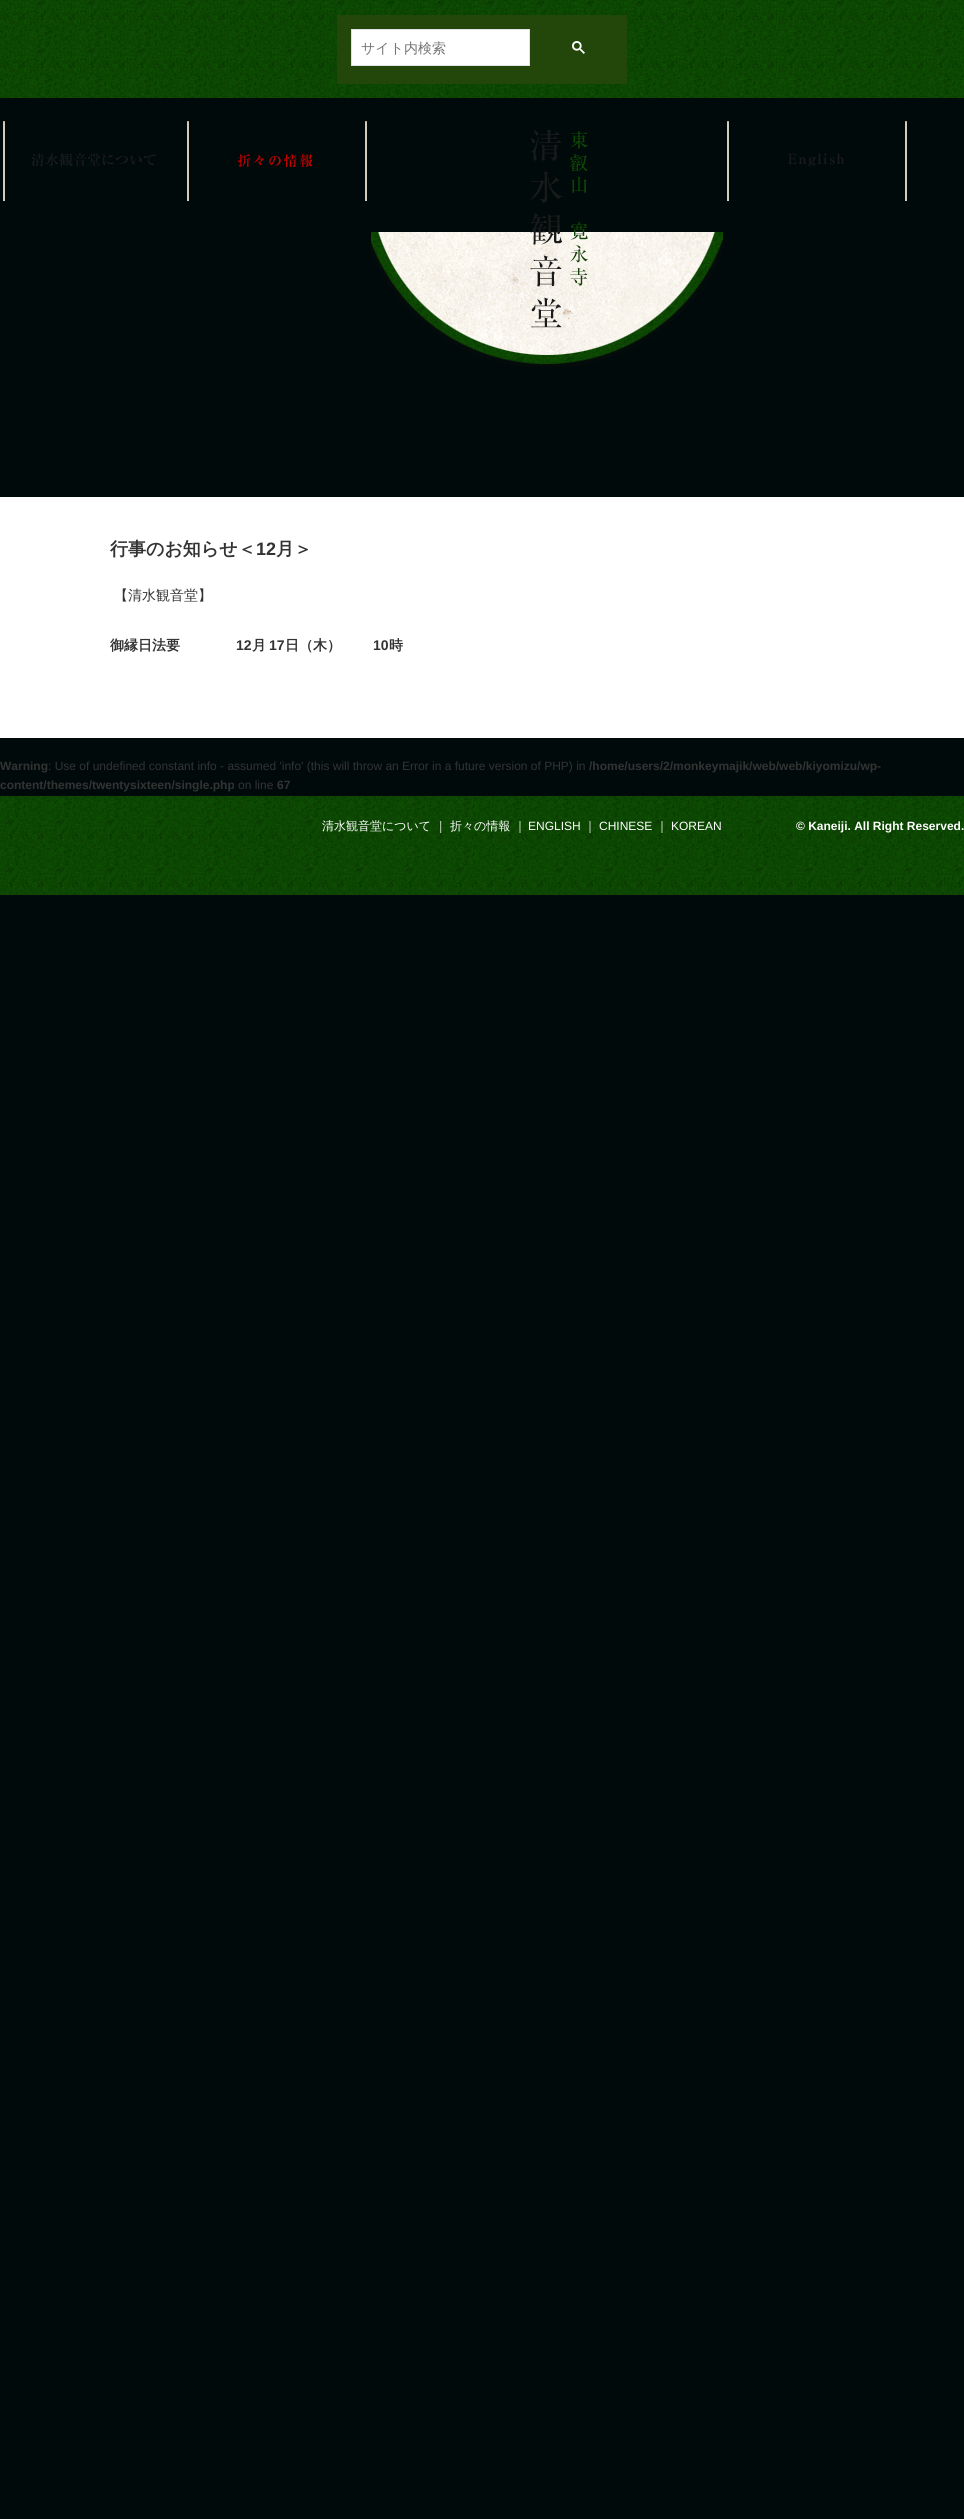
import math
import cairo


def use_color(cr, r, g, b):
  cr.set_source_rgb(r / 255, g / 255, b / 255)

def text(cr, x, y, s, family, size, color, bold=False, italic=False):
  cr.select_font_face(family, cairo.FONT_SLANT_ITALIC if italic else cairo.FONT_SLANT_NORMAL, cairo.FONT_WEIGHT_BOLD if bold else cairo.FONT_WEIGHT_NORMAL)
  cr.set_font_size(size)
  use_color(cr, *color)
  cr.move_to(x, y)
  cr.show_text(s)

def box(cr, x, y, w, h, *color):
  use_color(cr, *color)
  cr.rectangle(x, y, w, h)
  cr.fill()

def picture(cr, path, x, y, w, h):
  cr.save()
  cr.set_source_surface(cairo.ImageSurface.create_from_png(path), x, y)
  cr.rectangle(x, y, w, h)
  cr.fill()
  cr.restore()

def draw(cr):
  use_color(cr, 0, 10, 10)
  cr.paint()
  picture(cr, "img_01.png", 0, 0, 964, 98)
  box(cr, 337, 15, 290, 69, 35, 70, 10)
  use_color(cr, 255, 255, 255)
  cr.rectangle(351.5, 29.5, 178, 36)
  cr.fill_preserve()
  use_color(cr, 223, 225, 229)
  cr.set_line_width(1)
  cr.stroke()
  picture(cr, "img_02.png", 572, 41, 13, 13)
  picture(cr, "img_03.png", 3, 121, 153, 80)
  picture(cr, "img_04.png", 187, 121, 180, 80)
  picture(cr, "img_05.png", 371, 129, 352, 238)
  picture(cr, "img_06.png", 727, 121, 180, 80)
  box(cr, 0, 497, 964, 241, 255, 255, 255)
  picture(cr, "img_07.png", 0, 796, 964, 99)
  text(cr, 361, 53, "サイト内検索", "WenQuanYi Zen Hei Medium", 14, (117, 117, 117))
  text(cr, 110, 555, "行事のお知らせ＜", "WenQuanYi Zen Hei", 18, (51, 51, 51), bold=True)
  text(cr, 256, 555, "12", "Liberation Sans", 18, (51, 51, 51), bold=True)
  text(cr, 276, 555, "月＞", "WenQuanYi Zen Hei", 18, (51, 51, 51), bold=True)
  text(cr, 114, 600, "【清水観音堂】", "WenQuanYi Zen Hei Medium", 14, (51, 51, 51))
  text(cr, 110, 650, "御縁日法要", "WenQuanYi Zen Hei", 14, (51, 51, 51), bold=True)
  text(cr, 236, 650, "12", "Liberation Sans", 14, (51, 51, 51), bold=True)
  text(cr, 252, 650, "月", "WenQuanYi Zen Hei", 14, (51, 51, 51), bold=True)
  text(cr, 269, 650, "17", "Liberation Sans", 14, (51, 51, 51), bold=True)
  text(cr, 285, 650, "日（木）", "WenQuanYi Zen Hei", 14, (51, 51, 51), bold=True)
  text(cr, 373, 650, "10", "Liberation Sans", 14, (51, 51, 51), bold=True)
  text(cr, 389, 650, "時", "WenQuanYi Zen Hei", 14, (51, 51, 51), bold=True)
  text(cr, 0, 770, "Warning", "Liberation Sans", 12, (51, 51, 51), bold=True)
  text(cr, 48, 770, ": Use of undefined constant info - assumed 'info' (this will throw an Error in a future version of PHP) in", "Liberation Sans", 12, (51, 51, 51))
  text(cr, 589, 770, "/home/users/2/monkeymajik/web/web/kiyomizu/wp-", "Liberation Sans", 12, (51, 51, 51), bold=True)
  text(cr, 0, 789, "content/themes/twentysixteen/single.php", "Liberation Sans", 12, (51, 51, 51), bold=True)
  text(cr, 238, 789, "on line", "Liberation Sans", 12, (51, 51, 51))
  text(cr, 277, 789, "67", "Liberation Sans", 12, (51, 51, 51), bold=True)
  text(cr, 322, 830, "清水観音堂について ｜ 折々の情報 ｜", "WenQuanYi Zen Hei Medium", 12, (255, 255, 255))
  text(cr, 528, 830, "ENGLISH", "Liberation Sans", 12, (255, 255, 255))
  text(cr, 584, 830, "｜", "WenQuanYi Zen Hei Medium", 12, (255, 255, 255))
  text(cr, 599, 830, "CHINESE", "Liberation Sans", 12, (255, 255, 255))
  text(cr, 656, 830, "｜", "WenQuanYi Zen Hei Medium", 12, (255, 255, 255))
  text(cr, 671, 830, "KOREAN", "Liberation Sans", 12, (255, 255, 255))
  text(cr, 796, 830, "© Kaneiji. All Right Reserved.", "Liberation Sans", 12, (255, 255, 255), bold=True)


surface = cairo.ImageSurface(cairo.FORMAT_RGB24, 964, 2519)
cr = cairo.Context(surface)
options = cairo.FontOptions()
options.set_hint_metrics(cairo.HINT_METRICS_OFF)
options.set_hint_style(cairo.HINT_STYLE_NONE)
cr.set_font_options(options)
cr.set_miter_limit(4)
draw(cr)
surface.write_to_png("out.png")
